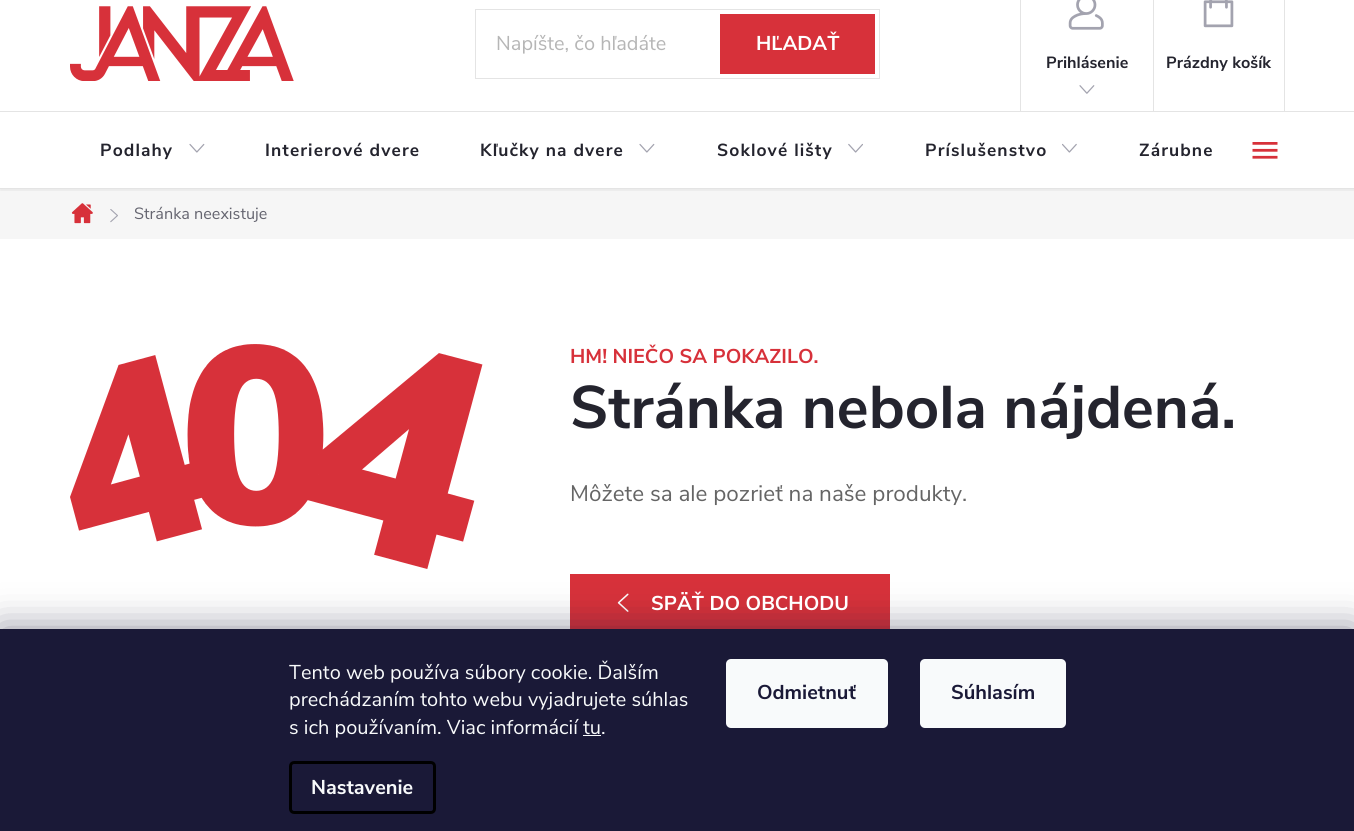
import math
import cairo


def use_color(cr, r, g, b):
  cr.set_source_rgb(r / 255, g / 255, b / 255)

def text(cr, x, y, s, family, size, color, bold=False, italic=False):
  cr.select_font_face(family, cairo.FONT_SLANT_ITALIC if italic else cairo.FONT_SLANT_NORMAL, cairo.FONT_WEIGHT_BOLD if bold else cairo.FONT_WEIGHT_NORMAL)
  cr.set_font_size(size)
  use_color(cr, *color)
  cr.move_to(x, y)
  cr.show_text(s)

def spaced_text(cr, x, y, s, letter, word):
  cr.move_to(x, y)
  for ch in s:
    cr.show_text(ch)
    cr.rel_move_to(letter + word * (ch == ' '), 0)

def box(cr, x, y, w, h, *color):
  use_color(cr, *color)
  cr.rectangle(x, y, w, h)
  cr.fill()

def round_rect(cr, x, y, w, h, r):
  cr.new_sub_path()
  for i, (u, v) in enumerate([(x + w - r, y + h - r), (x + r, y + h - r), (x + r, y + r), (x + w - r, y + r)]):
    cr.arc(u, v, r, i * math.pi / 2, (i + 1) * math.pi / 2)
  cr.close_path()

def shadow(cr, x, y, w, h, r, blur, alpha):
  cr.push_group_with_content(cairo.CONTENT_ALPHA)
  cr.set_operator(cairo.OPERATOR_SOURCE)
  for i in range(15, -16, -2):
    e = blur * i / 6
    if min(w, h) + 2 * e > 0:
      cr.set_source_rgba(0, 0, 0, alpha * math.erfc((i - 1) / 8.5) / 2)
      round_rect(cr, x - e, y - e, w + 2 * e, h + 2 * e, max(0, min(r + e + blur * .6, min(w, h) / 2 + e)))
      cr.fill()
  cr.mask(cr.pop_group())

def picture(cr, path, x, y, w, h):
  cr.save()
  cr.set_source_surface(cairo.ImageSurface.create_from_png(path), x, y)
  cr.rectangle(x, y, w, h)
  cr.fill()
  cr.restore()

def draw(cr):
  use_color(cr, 255, 255, 255)
  cr.paint()
  picture(cr, "img_01.png", 70, 6, 224, 75)
  cr.rectangle(475.5, 9.5, 404, 69)
  use_color(cr, 228, 228, 228)
  cr.set_line_width(1)
  cr.stroke()
  box(cr, 720, 14, 155, 60, 215, 49, 58)
  box(cr, 1020, 0, 1, 111, 228, 228, 228)
  picture(cr, "img_02.png", 1068, 0, 36, 30)
  picture(cr, "img_03.png", 1079, 85, 16, 9)
  box(cr, 1284, 0, 1, 111, 228, 228, 228)
  box(cr, 1153, 0, 1, 111, 228, 228, 228)
  picture(cr, "img_04.png", 1203, 0, 31, 28)
  box(cr, 0, 189, 1354, 50, 246, 246, 246)
  cr.save()
  cr.rectangle(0, 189, 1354, 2)
  cr.clip()
  use_color(cr, 0, 0, 0)
  shadow(cr, 0, 114, 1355, 77, 0, 1, 0.05)
  cr.restore()
  picture(cr, "img_05.png", 189, 143, 16, 10)
  picture(cr, "img_05.png", 639, 143, 16, 10)
  picture(cr, "img_06.png", 848, 143, 15, 10)
  picture(cr, "img_07.png", 1062, 143, 15, 10)
  picture(cr, "img_08.png", 1252, 142, 26, 17)
  box(cr, 0, 111, 1354, 1, 228, 228, 228)
  box(cr, 0, 188, 1354, 1, 228, 228, 228)
  picture(cr, "img_09.png", 71, 203, 22, 21)
  picture(cr, "img_10.png", 110, 209, 8, 14)
  picture(cr, "img_11.png", 70, 344, 413, 225)
  box(cr, 570, 574, 320, 55, 215, 49, 58)
  picture(cr, "img_12.png", 617, 593, 12, 19)
  use_color(cr, 27, 25, 57)
  shadow(cr, 0, 629, 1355, 202, 0, 19, 0.5)
  box(cr, 0, 629, 1354, 202, 26, 25, 55)
  box(cr, 583, 735, 18, 1, 248, 250, 251)
  round_rect(cr, 290.5, 762.5, 144, 50, 3.5)
  use_color(cr, 0, 0, 0)
  cr.set_line_width(3)
  cr.stroke()
  use_color(cr, 248, 250, 251)
  round_rect(cr, 726, 659, 162, 69, 5)
  cr.fill()
  round_rect(cr, 920, 659, 146, 69, 5)
  cr.fill()
  text(cr, 496, 50, "Napíšte, čo hľadáte", "Nunito Sans", 20, (182, 182, 182))
  text(cr, 756, 50, "HĽADAŤ", "Nunito Sans", 20, (255, 255, 255), bold=True)
  text(cr, 1046, 68, "Prihlásenie", "Nunito Sans", 16.25, (36, 36, 46), bold=True)
  text(cr, 1166, 68, "Prázdny košík", "Nunito Sans", 16.25, (36, 36, 46), bold=True)
  cr.set_font_size(17.5)
  spaced_text(cr, 100, 156, "Podlahy", 1.1, 0)
  spaced_text(cr, 265, 156, "Interierové dvere", 1.1, 0)
  spaced_text(cr, 480, 156, "Kľučky na dvere", 1.1, 0)
  spaced_text(cr, 717, 156, "Soklové lišty", 1.1, 0)
  spaced_text(cr, 925, 156, "Príslušenstvo", 1.1, 0)
  spaced_text(cr, 1139, 156, "Zárubne", 1.1, 0)
  text(cr, 134, 219, "Stránka neexistuje", "Nunito Sans", 16.25, (101, 101, 112))
  text(cr, 570, 363, "HM! NIEČO SA POKAZILO.", "Nunito Sans", 20, (215, 49, 58), bold=True)
  text(cr, 570, 428, "Stránka nebola nájdená.", "Nunito Sans", 60, (36, 36, 46), bold=True)
  text(cr, 570, 501, "Môžete sa ale pozrieť na naše produkty.", "Nunito Sans", 22.5, (101, 101, 101))
  text(cr, 651, 610, "SPÄŤ DO OBCHODU", "Nunito Sans", 20, (255, 255, 255), bold=True)
  text(cr, 289, 679, "Tento web používa súbory cookie. Ďalším", "Nunito Sans", 20, (248, 250, 251))
  text(cr, 289, 706, "prechádzaním tohto webu vyjadrujete súhlas", "Nunito Sans", 20, (248, 250, 251))
  text(cr, 289, 734, "s ich používaním. Viac informácií tu.", "Nunito Sans", 20, (248, 250, 251))
  text(cr, 311, 794, "Nastavenie", "Nunito Sans", 20, (248, 250, 251), bold=True)
  text(cr, 757, 699, "Odmietnuť", "Nunito Sans", 20, (26, 25, 55), bold=True)
  text(cr, 951, 699, "Súhlasím", "Nunito Sans", 20, (26, 25, 55), bold=True)


surface = cairo.ImageSurface(cairo.FORMAT_RGB24, 1354, 831)
cr = cairo.Context(surface)
options = cairo.FontOptions()
options.set_hint_metrics(cairo.HINT_METRICS_OFF)
options.set_hint_style(cairo.HINT_STYLE_NONE)
cr.set_font_options(options)
cr.set_miter_limit(4)
draw(cr)
surface.write_to_png("out.png")
